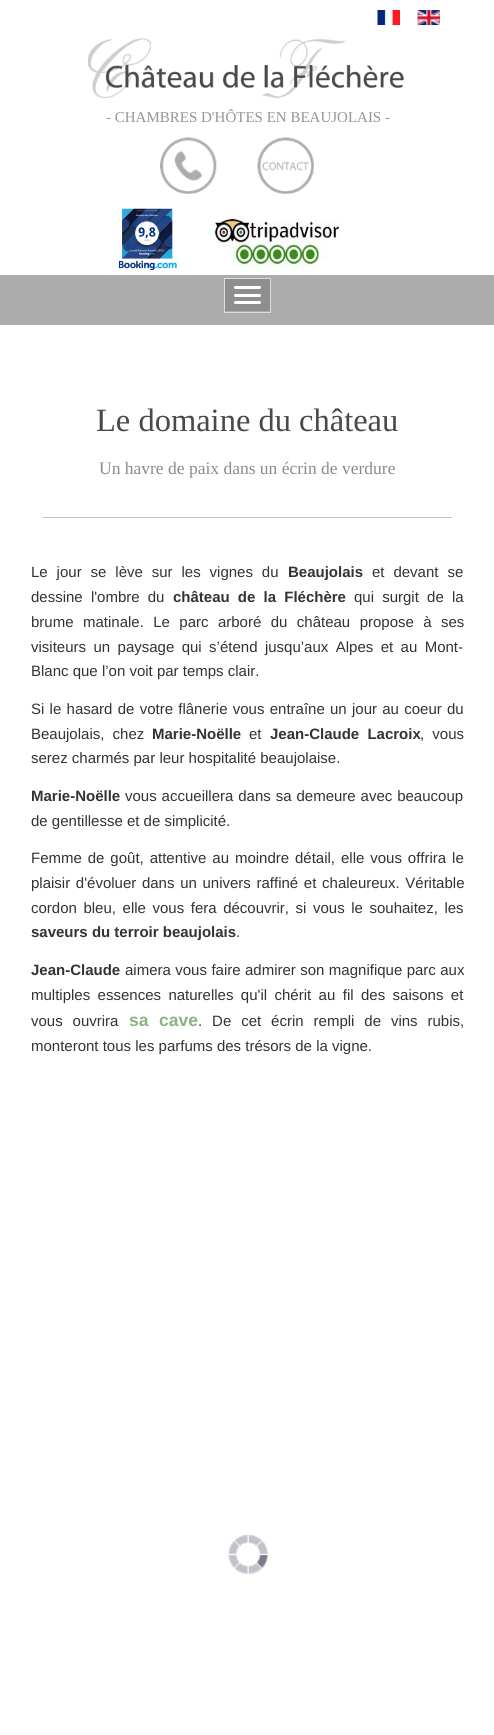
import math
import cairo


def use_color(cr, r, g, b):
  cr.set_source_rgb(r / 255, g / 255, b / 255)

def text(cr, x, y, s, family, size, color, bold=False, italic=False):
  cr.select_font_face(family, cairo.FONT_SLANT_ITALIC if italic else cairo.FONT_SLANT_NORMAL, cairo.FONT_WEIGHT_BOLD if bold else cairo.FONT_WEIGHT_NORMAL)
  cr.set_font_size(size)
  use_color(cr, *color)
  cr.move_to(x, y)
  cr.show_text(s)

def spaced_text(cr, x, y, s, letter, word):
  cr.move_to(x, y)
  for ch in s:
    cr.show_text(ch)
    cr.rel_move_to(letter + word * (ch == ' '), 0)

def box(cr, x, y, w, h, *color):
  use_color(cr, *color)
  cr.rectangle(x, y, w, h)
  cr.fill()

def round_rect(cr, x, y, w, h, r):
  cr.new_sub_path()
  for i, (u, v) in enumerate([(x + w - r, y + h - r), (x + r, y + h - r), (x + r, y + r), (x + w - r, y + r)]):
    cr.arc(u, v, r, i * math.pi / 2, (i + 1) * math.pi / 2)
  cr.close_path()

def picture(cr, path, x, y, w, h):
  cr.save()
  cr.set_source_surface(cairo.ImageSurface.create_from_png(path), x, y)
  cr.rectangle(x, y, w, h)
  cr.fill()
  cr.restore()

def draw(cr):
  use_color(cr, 255, 255, 255)
  cr.paint()
  picture(cr, "img_01.png", 377, 10, 23, 15)
  picture(cr, "img_02.png", 417, 10, 23, 15)
  picture(cr, "img_03.png", 88, 38, 316, 61)
  picture(cr, "img_04.png", 160, 137, 57, 57)
  picture(cr, "img_05.png", 257, 137, 57, 57)
  picture(cr, "img_06.png", 118, 208, 59, 62)
  picture(cr, "img_07.png", 211, 209, 128, 64)
  box(cr, 0, 275, 494, 50, 172, 172, 172)
  box(cr, 225, 279, 45, 32, 142, 142, 142)
  cr.rectangle(224.5, 278.5, 46, 34)
  use_color(cr, 221, 221, 221)
  cr.set_line_width(1)
  cr.stroke()
  use_color(cr, 255, 255, 255)
  round_rect(cr, 234, 286, 27, 3, 1.5)
  cr.fill()
  round_rect(cr, 234, 294, 27, 3, 1.5)
  cr.fill()
  round_rect(cr, 234, 301, 27, 3, 1.5)
  cr.fill()
  picture(cr, "img_08.png", 228, 1535, 40, 39)
  text(cr, 106, 122, "- CHAMBRES D'HÔTES EN BEAUJOLAIS -", "Liberation Serif", 15, (149, 149, 149))
  text(cr, 96, 431, "Le domaine du château", "Liberation Serif", 32.5, (73, 73, 73))
  text(cr, 99, 474, "Un havre de paix dans un écrin de verdure", "Liberation Serif", 17.5, (140, 139, 139))
  text(cr, 43, 515, "_________________________________________________", "Liberation Sans", 15, (192, 192, 192))
  use_color(cr, 51, 51, 51)
  spaced_text(cr, 31, 577, "Le jour se lève sur les vignes du", 0, 4.75)
  text(cr, 288, 577, "Beaujolais", "Liberation Sans", 15, (51, 51, 51), bold=True)
  cr.select_font_face("Liberation Sans")
  spaced_text(cr, 372, 577, "et devant se", 0, 4.75)
  spaced_text(cr, 31, 602, "dessine l'ombre du", 0, 4)
  cr.select_font_face("Liberation Sans", cairo.FONT_SLANT_NORMAL, cairo.FONT_WEIGHT_BOLD)
  spaced_text(cr, 173, 602, "château de la Fléchère", 0, 4)
  cr.select_font_face("Liberation Sans")
  spaced_text(cr, 354, 602, "qui surgit de la", 0, 4)
  spaced_text(cr, 31, 627, "brume matinale. Le parc arboré du château propose à ses", 0, 5.25)
  spaced_text(cr, 31, 652, "visiteurs un paysage qui s’étend jusqu’aux Alpes et au Mont-", 0, 3.25)
  text(cr, 31, 676, "Blanc que l’on voit par temps clair.", "Liberation Sans", 15, (51, 51, 51))
  spaced_text(cr, 31, 714, "Si le hasard de votre flânerie vous entraîne un jour au coeur du", 0, 1.1)
  spaced_text(cr, 31, 739, "Beaujolais, chez", 0, 4)
  text(cr, 152, 739, "Marie-Noëlle", "Liberation Sans", 15, (51, 51, 51), bold=True)
  text(cr, 249, 739, "et", "Liberation Sans", 15, (51, 51, 51))
  cr.select_font_face("Liberation Sans", cairo.FONT_SLANT_NORMAL, cairo.FONT_WEIGHT_BOLD)
  spaced_text(cr, 270, 739, "Jean-Claude Lacroix", 0, 4)
  cr.select_font_face("Liberation Sans")
  spaced_text(cr, 420, 739, ", vous", 0, 4)
  text(cr, 31, 763, "serez charmés par leur hospitalité beaujolaise.", "Liberation Sans", 15, (51, 51, 51))
  text(cr, 31, 801, "Marie-Noëlle", "Liberation Sans", 15, (51, 51, 51), bold=True)
  cr.select_font_face("Liberation Sans")
  spaced_text(cr, 125, 801, "vous accueillera dans sa demeure avec beaucoup", 0, 0.75)
  text(cr, 31, 826, "de gentillesse et de simplicité.", "Liberation Sans", 15, (51, 51, 51))
  spaced_text(cr, 31, 863, "Femme de goût, attentive au moindre détail, elle vous offrira le", 0, 1.75)
  spaced_text(cr, 31, 888, "plaisir d'évoluer dans un univers raffiné et chaleureux. Véritable", 0, 1.5)
  spaced_text(cr, 31, 913, "cordon bleu, elle vous fera découvrir, si vous le souhaitez, les", 0, 2.4)
  text(cr, 31, 937, "saveurs du terroir beaujolais", "Liberation Sans", 15, (51, 51, 51), bold=True)
  text(cr, 236, 937, ".", "Liberation Sans", 15, (51, 51, 51))
  text(cr, 31, 975, "Jean-Claude", "Liberation Sans", 15, (51, 51, 51), bold=True)
  cr.select_font_face("Liberation Sans")
  spaced_text(cr, 125, 975, "aimera vous faire admirer son magnifique parc aux", 0, 0.25)
  spaced_text(cr, 31, 1000, "multiples essences naturelles qu'il chérit au fil des saisons et", 0, 3.25)
  spaced_text(cr, 31, 1026, "vous ouvrira", 0, 5.75)
  cr.select_font_face("Liberation Sans", cairo.FONT_SLANT_NORMAL, cairo.FONT_WEIGHT_BOLD)
  cr.set_font_size(17.5)
  use_color(cr, 139, 178, 131)
  spaced_text(cr, 129, 1026, "sa cave", 0, 5.75)
  cr.select_font_face("Liberation Sans")
  cr.set_font_size(15)
  use_color(cr, 51, 51, 51)
  spaced_text(cr, 198, 1026, ". De cet écrin rempli de vins rubis,", 0, 5.75)
  text(cr, 31, 1051, "monteront tous les parfums des trésors de la vigne.", "Liberation Sans", 15, (51, 51, 51))


surface = cairo.ImageSurface(cairo.FORMAT_RGB24, 494, 1735)
cr = cairo.Context(surface)
options = cairo.FontOptions()
options.set_hint_metrics(cairo.HINT_METRICS_OFF)
options.set_hint_style(cairo.HINT_STYLE_NONE)
cr.set_font_options(options)
cr.set_miter_limit(4)
draw(cr)
surface.write_to_png("out.png")
